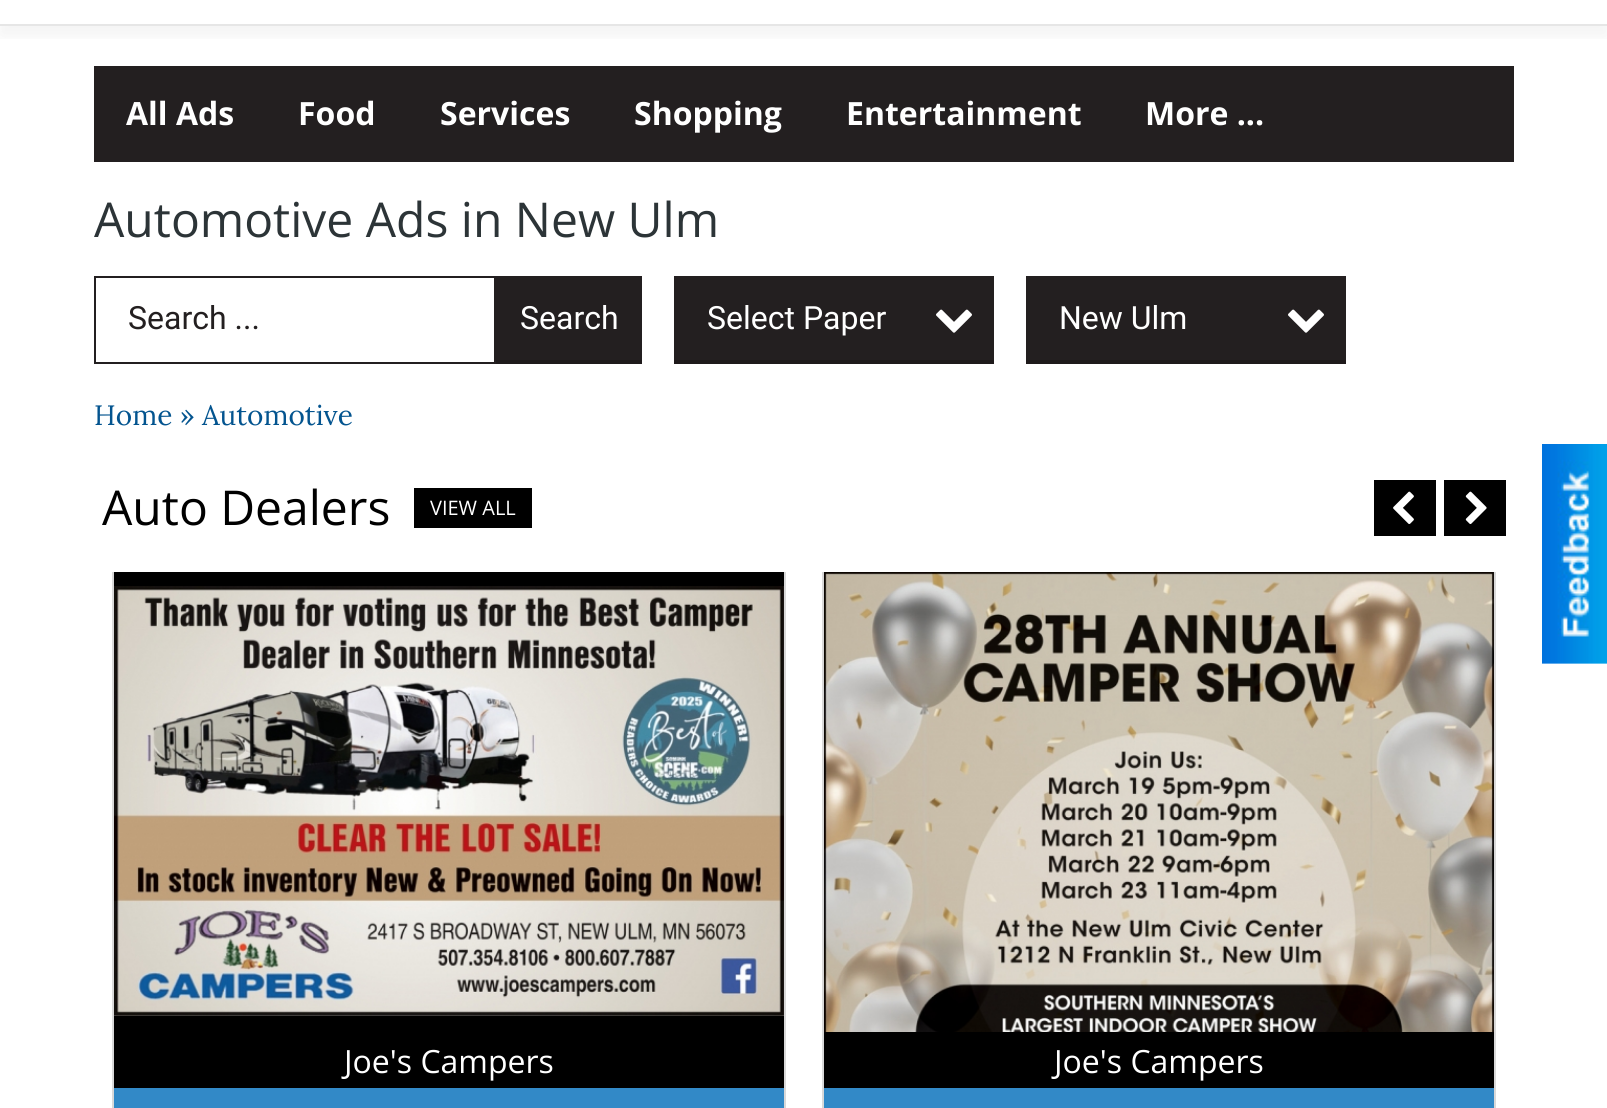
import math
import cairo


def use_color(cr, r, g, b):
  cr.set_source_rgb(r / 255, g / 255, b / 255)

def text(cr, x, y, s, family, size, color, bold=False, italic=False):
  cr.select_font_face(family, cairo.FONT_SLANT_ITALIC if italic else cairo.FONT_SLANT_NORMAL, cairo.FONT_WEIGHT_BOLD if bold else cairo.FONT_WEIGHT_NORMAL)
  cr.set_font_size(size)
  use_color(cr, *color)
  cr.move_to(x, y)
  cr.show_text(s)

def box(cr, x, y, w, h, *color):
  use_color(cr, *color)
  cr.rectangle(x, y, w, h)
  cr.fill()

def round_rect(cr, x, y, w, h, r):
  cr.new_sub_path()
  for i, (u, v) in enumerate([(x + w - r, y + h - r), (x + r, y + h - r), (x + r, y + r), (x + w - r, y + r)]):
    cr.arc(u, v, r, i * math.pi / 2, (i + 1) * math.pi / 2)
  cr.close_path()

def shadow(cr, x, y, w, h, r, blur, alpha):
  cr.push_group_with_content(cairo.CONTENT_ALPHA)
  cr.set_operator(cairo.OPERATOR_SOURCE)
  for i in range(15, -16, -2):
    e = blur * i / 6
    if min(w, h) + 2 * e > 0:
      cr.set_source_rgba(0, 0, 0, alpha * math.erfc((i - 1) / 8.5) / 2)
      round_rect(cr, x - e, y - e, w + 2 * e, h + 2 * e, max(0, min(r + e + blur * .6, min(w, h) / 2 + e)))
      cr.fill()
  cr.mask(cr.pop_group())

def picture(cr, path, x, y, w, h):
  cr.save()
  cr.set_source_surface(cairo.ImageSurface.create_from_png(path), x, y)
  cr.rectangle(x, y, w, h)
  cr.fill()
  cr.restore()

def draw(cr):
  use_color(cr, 255, 255, 255)
  cr.paint()
  box(cr, 94, 66, 1420, 96, 35, 31, 32)
  cr.save()
  cr.rectangle(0, 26, 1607, 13)
  cr.clip()
  use_color(cr, 0, 0, 0)
  shadow(cr, 0, -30, 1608, 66, 0, 10, 0.05)
  cr.restore()
  box(cr, 0, 24, 1607, 2, 230, 230, 230)
  cr.rectangle(95, 277, 400, 86)
  use_color(cr, 35, 31, 32)
  cr.stroke()
  box(cr, 496, 276, 146, 84, 35, 31, 32)
  box(cr, 496, 360, 146, 4, 30, 26, 27)
  box(cr, 674, 276, 320, 84, 35, 31, 32)
  box(cr, 674, 360, 320, 4, 30, 26, 27)
  picture(cr, "img_01.png", 936, 309, 36, 24)
  box(cr, 1026, 276, 320, 84, 35, 31, 32)
  box(cr, 1026, 360, 320, 4, 30, 26, 27)
  picture(cr, "img_01.png", 1288, 309, 36, 24)
  box(cr, 414, 488, 118, 40, 0, 0, 0)
  box(cr, 1374, 480, 62, 56, 0, 0, 0)
  picture(cr, "img_02.png", 1393, 491, 21, 33)
  box(cr, 1444, 480, 62, 56, 0, 0, 0)
  picture(cr, "img_03.png", 1465, 491, 22, 33)
  cr.save()
  cr.rectangle(94, 572, 1420, 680)
  cr.clip()
  cr.rectangle(113, 571, 672, 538)
  use_color(cr, 217, 217, 217)
  cr.stroke()
  cr.restore()
  box(cr, 114, 572, 670, 516, 0, 0, 0)
  picture(cr, "img_04.png", 114, 586, 670, 430)
  box(cr, 114, 1088, 670, 20, 50, 137, 199)
  cr.save()
  cr.rectangle(94, 572, 1420, 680)
  cr.clip()
  cr.rectangle(823, 571, 672, 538)
  use_color(cr, 217, 217, 217)
  cr.stroke()
  cr.restore()
  picture(cr, "img_05.png", 824, 572, 670, 460)
  box(cr, 824, 1032, 670, 56, 0, 0, 0)
  box(cr, 824, 1088, 670, 20, 50, 137, 199)
  picture(cr, "img_06.png", 1542, 444, 65, 220)
  text(cr, 126, 125, "All Ads", "Open Sans", 32, (255, 255, 255), bold=True)
  text(cr, 298, 125, "Food", "Open Sans", 32, (255, 255, 255), bold=True)
  text(cr, 440, 125, "Services", "Open Sans", 32, (255, 255, 255), bold=True)
  text(cr, 634, 125, "Shopping", "Open Sans", 32, (255, 255, 255), bold=True)
  text(cr, 846, 125, "Entertainment", "Open Sans", 32, (255, 255, 255), bold=True)
  text(cr, 1145, 125, "More ...", "Open Sans", 32, (255, 255, 255), bold=True)
  text(cr, 94, 237, "Automotive Ads in New Ulm", "Open Sans", 48, (44, 52, 55))
  text(cr, 128, 329, "Search ...", "Roboto", 32, (35, 31, 32))
  text(cr, 520, 329, "Search", "Roboto", 32, (255, 255, 255))
  text(cr, 707, 329, "Select Paper", "Roboto", 32, (255, 255, 255))
  text(cr, 1059, 329, "New Ulm", "Roboto", 32, (255, 255, 255))
  text(cr, 94, 425, "Home » Automotive", "Lora", 28, (3, 84, 143))
  text(cr, 102, 525, "Auto Dealers", "Open Sans", 48, (0, 0, 0))
  text(cr, 430, 515, "VIEW ALL", "Open Sans", 20, (255, 255, 255))
  text(cr, 344, 1073, "Joe's Campers", "Open Sans", 32, (255, 255, 255))
  text(cr, 1054, 1073, "Joe's Campers", "Open Sans", 32, (255, 255, 255))


surface = cairo.ImageSurface(cairo.FORMAT_RGB24, 1607, 1108)
cr = cairo.Context(surface)
options = cairo.FontOptions()
options.set_hint_metrics(cairo.HINT_METRICS_OFF)
options.set_hint_style(cairo.HINT_STYLE_NONE)
cr.set_font_options(options)
cr.set_miter_limit(4)
draw(cr)
surface.write_to_png("out.png")
